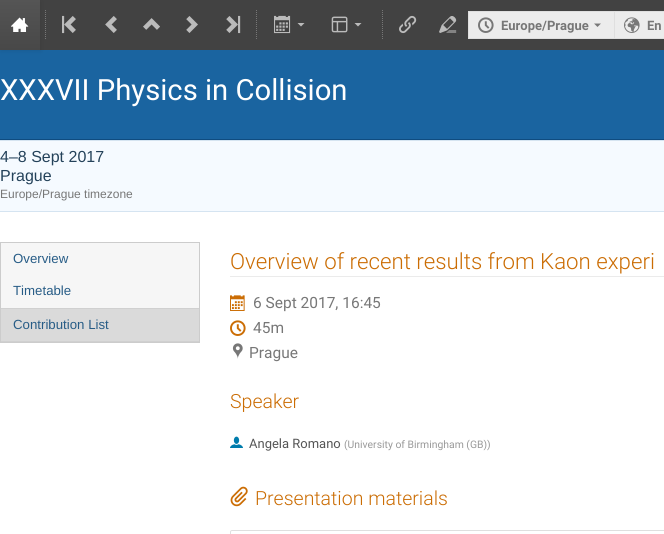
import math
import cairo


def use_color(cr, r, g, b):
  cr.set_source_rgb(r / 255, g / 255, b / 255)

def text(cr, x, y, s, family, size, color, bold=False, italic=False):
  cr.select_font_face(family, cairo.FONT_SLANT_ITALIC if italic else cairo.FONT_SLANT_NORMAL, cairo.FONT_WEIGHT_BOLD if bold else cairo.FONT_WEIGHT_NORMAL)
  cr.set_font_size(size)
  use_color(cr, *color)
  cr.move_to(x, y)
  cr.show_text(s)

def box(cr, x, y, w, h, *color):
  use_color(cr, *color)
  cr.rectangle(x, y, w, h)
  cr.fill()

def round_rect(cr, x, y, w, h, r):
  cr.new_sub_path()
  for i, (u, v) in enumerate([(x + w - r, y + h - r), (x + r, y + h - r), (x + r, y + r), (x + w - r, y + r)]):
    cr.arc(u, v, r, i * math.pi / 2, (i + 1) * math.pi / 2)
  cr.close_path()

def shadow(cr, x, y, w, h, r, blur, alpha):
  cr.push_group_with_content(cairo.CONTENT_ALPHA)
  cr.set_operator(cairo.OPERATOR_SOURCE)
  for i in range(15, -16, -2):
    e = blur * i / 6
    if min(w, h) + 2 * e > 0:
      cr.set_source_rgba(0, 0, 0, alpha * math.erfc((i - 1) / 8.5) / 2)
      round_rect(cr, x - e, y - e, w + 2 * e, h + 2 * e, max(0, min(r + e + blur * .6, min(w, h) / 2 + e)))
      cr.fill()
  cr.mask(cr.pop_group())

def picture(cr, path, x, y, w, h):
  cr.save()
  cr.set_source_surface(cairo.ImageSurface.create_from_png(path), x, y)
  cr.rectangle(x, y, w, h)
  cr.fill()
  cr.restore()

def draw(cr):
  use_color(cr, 255, 255, 255)
  cr.paint()
  box(cr, 40, 0, 624, 50, 66, 66, 66)
  box(cr, 0, 50, 664, 89, 26, 100, 160)
  use_color(cr, 20, 20, 20)
  shadow(cr, 1, 1, 40, 50, 0, 2, 0.1)
  gradient = cairo.LinearGradient(20, 0, 20, 50)
  gradient.add_color_stop_rgba(0, 0.333, 0.333, 0.333, 1)
  gradient.add_color_stop_rgba(1, 0.282, 0.282, 0.282, 1)
  cr.set_source(gradient)
  cr.rectangle(0, 0, 40, 50)
  cr.fill()
  picture(cr, "img_01.png", 11, 17, 18, 15)
  cr.new_path()
  cr.move_to(45.5, 10)
  cr.line_to(45.5, 40)
  use_color(cr, 119, 119, 119)
  cr.set_line_width(1)
  cr.set_dash([1, 1])
  cr.stroke()
  picture(cr, "img_02.png", 62, 15, 14, 19)
  picture(cr, "img_03.png", 105, 16, 12, 17)
  picture(cr, "img_04.png", 143, 18, 17, 12)
  picture(cr, "img_05.png", 186, 16, 12, 17)
  picture(cr, "img_06.png", 226, 15, 15, 19)
  cr.new_path()
  cr.move_to(256.5, 10)
  cr.line_to(256.5, 40)
  cr.stroke()
  picture(cr, "img_07.png", 274, 15, 17, 19)
  use_color(cr, 187, 187, 187)
  cr.new_path()
  cr.move_to(297.5, 23)
  cr.line_to(301, 26.5)
  cr.line_to(304.5, 23)
  cr.close_path()
  cr.fill()
  picture(cr, "img_08.png", 331, 16, 17, 17)
  cr.new_path()
  cr.move_to(354.5, 23)
  cr.line_to(358, 26.5)
  cr.line_to(361.5, 23)
  cr.close_path()
  cr.fill()
  cr.new_path()
  cr.move_to(382.5, 10)
  cr.line_to(382.5, 40)
  use_color(cr, 119, 119, 119)
  cr.stroke()
  picture(cr, "img_09.png", 399, 15, 18, 19)
  picture(cr, "img_10.png", 439, 16, 18, 17)
  box(cr, 469, 12, 145, 26, 236, 236, 236)
  box(cr, 468, 11, 146, 1, 223, 223, 223)
  box(cr, 468, 38, 146, 1, 223, 223, 223)
  box(cr, 468, 11, 1, 28, 223, 223, 223)
  picture(cr, "img_11.png", 478, 17, 16, 16)
  use_color(cr, 119, 119, 119)
  cr.new_path()
  cr.move_to(594, 23.5)
  cr.line_to(597.5, 27)
  cr.line_to(601, 23.5)
  cr.close_path()
  cr.fill()
  use_color(cr, 236, 236, 236)
  cr.rectangle(614.5, 11.5, 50, 27)
  cr.fill_preserve()
  use_color(cr, 223, 223, 223)
  cr.set_dash([])
  cr.stroke()
  picture(cr, "img_12.png", 624, 17, 16, 16)
  box(cr, 0, 139, 664, 1, 15, 76, 128)
  box(cr, 0, 141, 664, 70, 245, 250, 255)
  box(cr, 0, 140, 664, 1, 213, 228, 241)
  box(cr, 0, 211, 664, 1, 213, 228, 241)
  box(cr, 1, 243, 198, 65, 246, 246, 246)
  cr.rectangle(0.5, 242.5, 199, 100)
  use_color(cr, 204, 204, 204)
  cr.stroke()
  box(cr, 1, 309, 198, 32, 218, 218, 218)
  box(cr, 1, 308, 198, 1, 208, 208, 208)
  box(cr, 1, 341, 198, 1, 208, 208, 208)
  box(cr, 230, 276, 434, 1, 235, 235, 235)
  picture(cr, "img_13.png", 230, 295, 15, 16)
  picture(cr, "img_14.png", 230, 320, 16, 16)
  picture(cr, "img_15.png", 232, 343, 11, 16)
  picture(cr, "img_16.png", 230, 436, 13, 12)
  picture(cr, "img_17.png", 230, 486, 18, 21)
  round_rect(cr, 230.5, 530.5, 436, 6, 1.5)
  use_color(cr, 223, 223, 223)
  cr.stroke()
  text(cr, 501, 30, "Europe/Prague", "Roboto", 13, (119, 119, 119), bold=True)
  text(cr, 647, 30, "En", "Roboto", 13, (119, 119, 119), bold=True)
  text(cr, 0, 100, "XXXVII Physics in Collision", "Roboto", 29.25, (255, 255, 255))
  text(cr, 0, 162, "4–8 Sept 2017", "Liberation Sans", 16, (36, 66, 90))
  text(cr, 0, 181, "Prague", "Liberation Sans", 16, (36, 66, 90))
  text(cr, 0, 198, "Europe/Prague timezone", "Liberation Sans", 12, (119, 119, 119))
  text(cr, 13, 263, "Overview", "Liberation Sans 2", 13.25, (39, 92, 134))
  text(cr, 13, 295, "Timetable", "Liberation Sans 2", 13.25, (39, 92, 134))
  text(cr, 13, 329, "Contribution List", "Liberation Sans 2", 13.25, (39, 92, 134))
  text(cr, 230, 269, "Overview of recent results from Kaon experi", "Roboto Light", 22.25, (203, 109, 4))
  text(cr, 253, 308, "6 Sept 2017, 16:45", "Roboto", 15.5, (119, 119, 119))
  text(cr, 253, 333, "45m", "Roboto", 15.5, (119, 119, 119))
  text(cr, 249, 358, "Prague", "Roboto", 15.5, (119, 119, 119))
  text(cr, 230, 408, "Speaker", "Roboto Light", 19.5, (203, 109, 4))
  text(cr, 249, 448, "Angela Romano", "Roboto", 13, (85, 85, 85))
  text(cr, 344, 448, "(University of Birmingham (GB))", "Roboto", 10.4, (153, 153, 153))
  text(cr, 255, 505, "Presentation materials", "Roboto Light", 19.5, (203, 109, 4))


surface = cairo.ImageSurface(cairo.FORMAT_RGB24, 664, 534)
cr = cairo.Context(surface)
options = cairo.FontOptions()
options.set_hint_metrics(cairo.HINT_METRICS_OFF)
options.set_hint_style(cairo.HINT_STYLE_NONE)
cr.set_font_options(options)
cr.set_miter_limit(4)
draw(cr)
surface.write_to_png("out.png")
